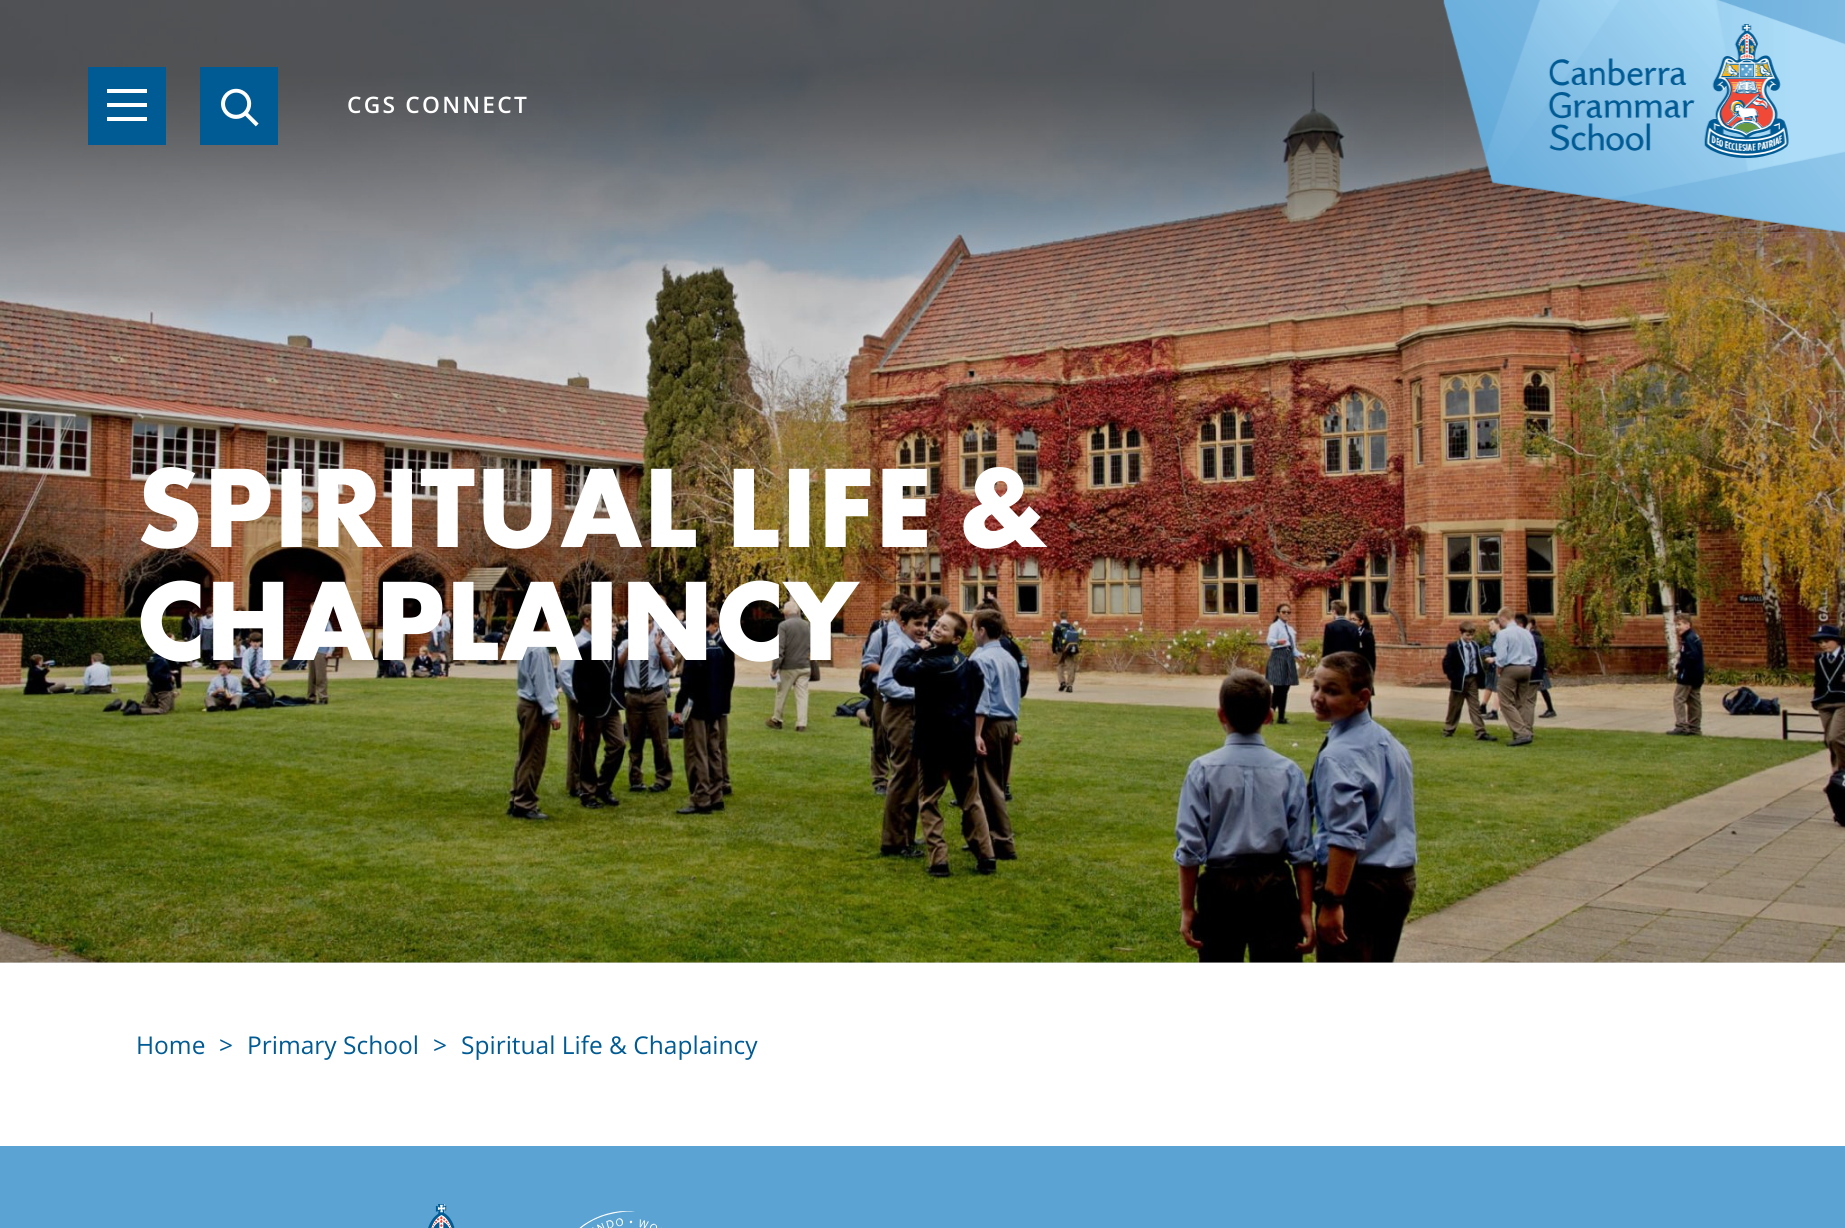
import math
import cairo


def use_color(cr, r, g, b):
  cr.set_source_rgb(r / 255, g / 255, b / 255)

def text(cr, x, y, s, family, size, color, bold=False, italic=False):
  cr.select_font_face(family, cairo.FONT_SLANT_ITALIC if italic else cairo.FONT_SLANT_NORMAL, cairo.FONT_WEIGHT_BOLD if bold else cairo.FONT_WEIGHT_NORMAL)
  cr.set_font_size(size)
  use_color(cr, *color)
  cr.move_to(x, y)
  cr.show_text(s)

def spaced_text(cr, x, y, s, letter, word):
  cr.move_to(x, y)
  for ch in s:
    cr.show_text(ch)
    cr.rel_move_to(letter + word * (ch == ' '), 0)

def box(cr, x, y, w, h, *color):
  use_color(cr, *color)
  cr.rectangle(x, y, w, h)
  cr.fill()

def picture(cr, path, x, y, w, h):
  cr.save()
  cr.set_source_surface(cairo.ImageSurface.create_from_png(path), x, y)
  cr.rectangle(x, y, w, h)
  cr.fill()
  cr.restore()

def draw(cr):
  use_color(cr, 255, 255, 255)
  cr.paint()
  picture(cr, "img_03.png", 0, 0, 1845, 963)
  picture(cr, "img_04.png", 0, 0, 1845, 963)
  box(cr, 88, 67, 78, 78, 0, 91, 148)
  box(cr, 107, 89, 40, 4, 255, 255, 255)
  box(cr, 107, 103, 40, 4, 255, 255, 255)
  box(cr, 107, 117, 40, 4, 255, 255, 255)
  box(cr, 200, 67, 78, 78, 0, 91, 148)
  picture(cr, "img_01.png", 221, 88, 38, 39)
  picture(cr, "img_02.png", 1443, 0, 402, 233)
  box(cr, 0, 1146, 1845, 82, 90, 163, 210)
  picture(cr, "img_05.png", 428, 1204, 27, 24)
  picture(cr, "img_06.png", 579, 1211, 83, 17)
  cr.select_font_face("Open Sans SemiBold")
  cr.set_font_size(22.75)
  use_color(cr, 255, 255, 255)
  spaced_text(cr, 347, 113, "CGS CONNECT", 2.25, 0)
  text(cr, 136, 547, "SPIRITUAL LIFE &", "Futura PT", 117.25, (255, 255, 255), bold=True)
  text(cr, 136, 660, "CHAPLAINCY", "Futura PT", 117.25, (255, 255, 255), bold=True)
  text(cr, 136, 1054, "Home", "Open Sans", 24.5, (0, 91, 148))
  text(cr, 219, 1054, ">", "Open Sans", 24.5, (0, 91, 148))
  text(cr, 247, 1054, "Primary School", "Open Sans", 24.5, (0, 91, 148))
  text(cr, 433, 1054, ">", "Open Sans", 24.5, (0, 91, 148))
  text(cr, 461, 1054, "Spiritual Life & Chaplaincy", "Open Sans", 24.5, (0, 91, 148))


surface = cairo.ImageSurface(cairo.FORMAT_RGB24, 1845, 1228)
cr = cairo.Context(surface)
options = cairo.FontOptions()
options.set_hint_metrics(cairo.HINT_METRICS_OFF)
options.set_hint_style(cairo.HINT_STYLE_NONE)
cr.set_font_options(options)
cr.set_miter_limit(4)
draw(cr)
surface.write_to_png("out.png")
